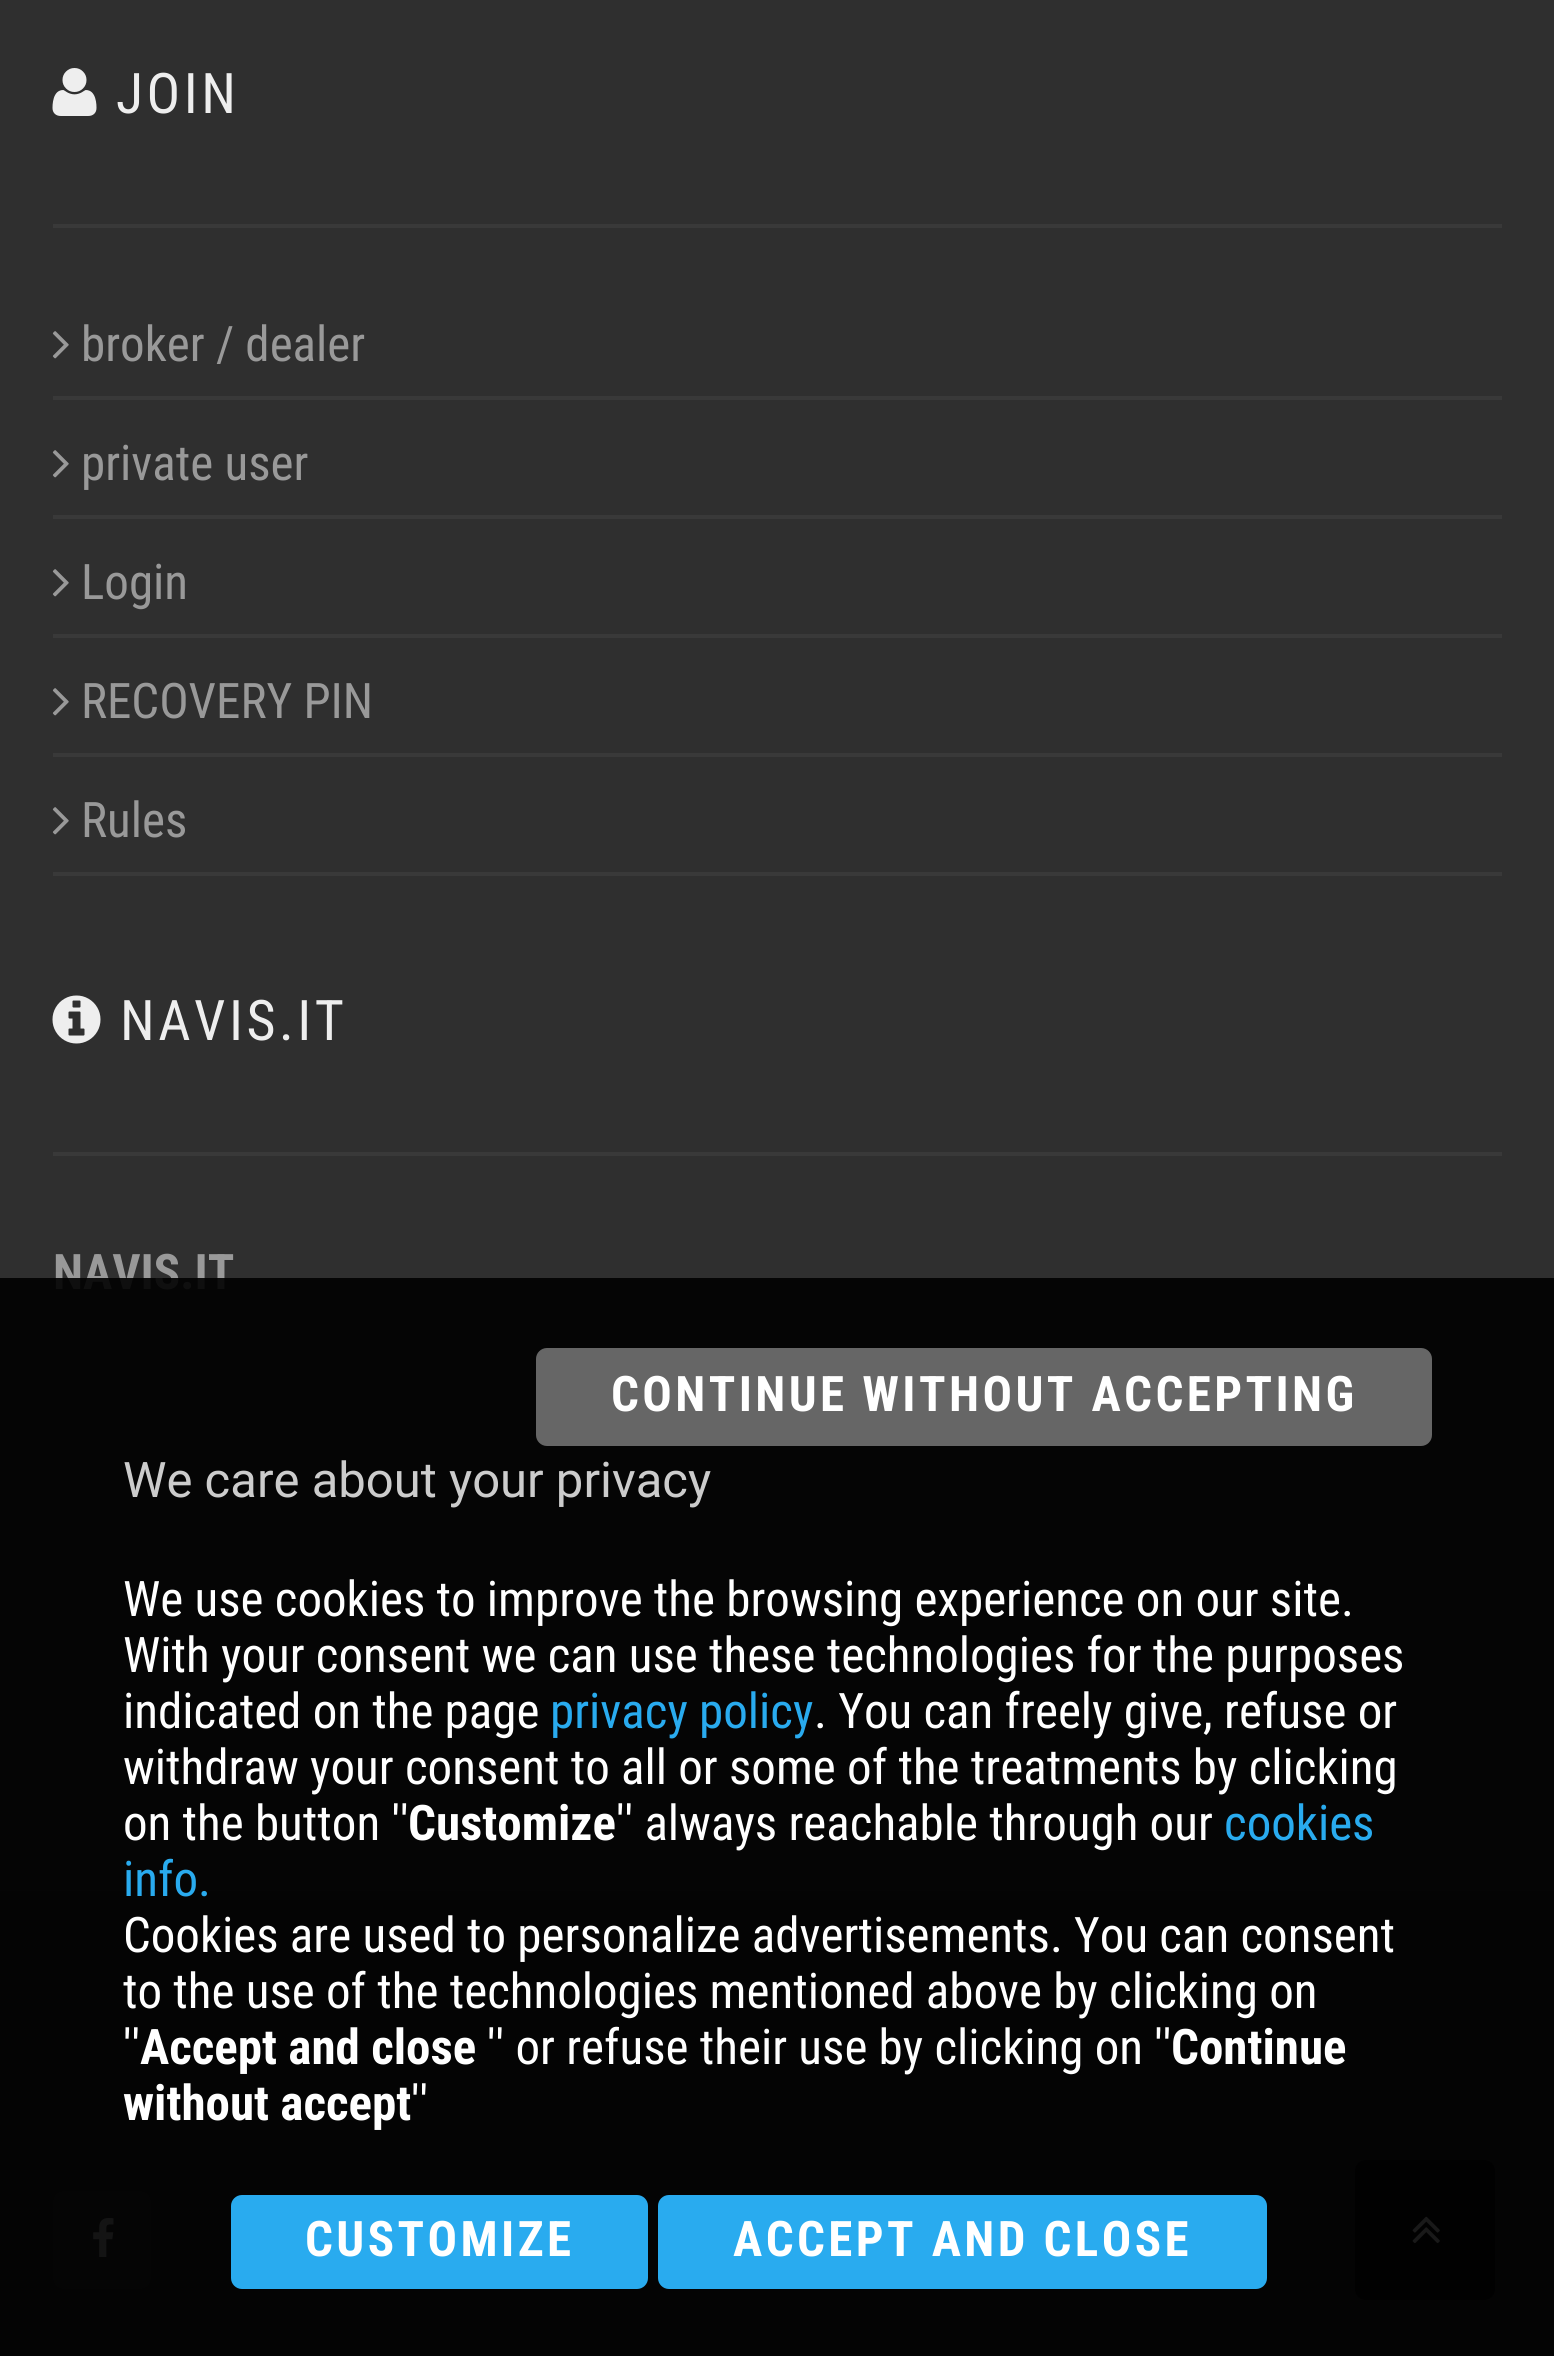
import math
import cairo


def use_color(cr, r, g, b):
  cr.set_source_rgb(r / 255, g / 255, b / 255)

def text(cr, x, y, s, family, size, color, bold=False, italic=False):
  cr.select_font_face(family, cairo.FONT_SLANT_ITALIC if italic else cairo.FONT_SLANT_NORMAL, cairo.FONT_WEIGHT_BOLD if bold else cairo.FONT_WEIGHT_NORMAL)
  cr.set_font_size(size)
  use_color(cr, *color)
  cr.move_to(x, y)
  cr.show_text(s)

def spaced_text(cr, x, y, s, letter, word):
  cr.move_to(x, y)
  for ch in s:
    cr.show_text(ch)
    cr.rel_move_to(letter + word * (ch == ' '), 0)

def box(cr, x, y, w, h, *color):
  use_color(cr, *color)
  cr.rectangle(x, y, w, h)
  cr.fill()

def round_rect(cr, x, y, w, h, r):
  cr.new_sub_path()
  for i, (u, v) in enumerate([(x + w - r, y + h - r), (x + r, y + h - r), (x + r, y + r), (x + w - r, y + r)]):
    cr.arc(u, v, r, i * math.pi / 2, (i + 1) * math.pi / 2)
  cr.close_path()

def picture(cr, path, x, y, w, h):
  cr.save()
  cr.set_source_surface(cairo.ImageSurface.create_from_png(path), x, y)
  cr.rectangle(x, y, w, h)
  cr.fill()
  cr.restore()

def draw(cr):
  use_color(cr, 47, 47, 47)
  cr.paint()
  box(cr, 53, 224, 1449, 4, 57, 57, 57)
  picture(cr, "img_01.png", 52, 68, 45, 48)
  box(cr, 53, 396, 1449, 4, 57, 57, 57)
  picture(cr, "img_02.png", 52, 331, 17, 28)
  box(cr, 53, 515, 1449, 4, 57, 57, 57)
  picture(cr, "img_02.png", 52, 450, 17, 28)
  box(cr, 53, 634, 1449, 4, 57, 57, 57)
  picture(cr, "img_02.png", 52, 569, 17, 28)
  box(cr, 53, 753, 1449, 4, 57, 57, 57)
  picture(cr, "img_02.png", 52, 688, 17, 28)
  box(cr, 53, 872, 1449, 4, 57, 57, 57)
  picture(cr, "img_02.png", 52, 807, 17, 28)
  box(cr, 53, 1152, 1449, 4, 57, 57, 57)
  picture(cr, "img_03.png", 52, 995, 49, 49)
  box(cr, 0, 1891, 1554, 465, 37, 37, 37)
  use_color(cr, 48, 48, 48)
  round_rect(cr, 53, 2191, 98, 98, 11)
  cr.fill()
  picture(cr, "img_04.png", 93, 2218, 21, 39)
  use_color(cr, 11, 11, 11)
  round_rect(cr, 1355, 2160, 140, 140, 11)
  cr.fill()
  picture(cr, "img_05.png", 1412, 2216, 28, 28)
  cr.select_font_face("Roboto Condensed")
  cr.set_font_size(56)
  use_color(cr, 238, 238, 238)
  spaced_text(cr, 116, 113, "JOIN", 3.5, 0)
  text(cr, 81, 361, "broker / dealer", "Roboto Condensed", 49, (153, 153, 153))
  text(cr, 81, 480, "private user", "Roboto Condensed", 49, (153, 153, 153))
  text(cr, 81, 599, "Login", "Roboto Condensed", 49, (153, 153, 153))
  text(cr, 81, 718, "RECOVERY PIN", "Roboto Condensed", 49, (153, 153, 153))
  text(cr, 81, 837, "Rules", "Roboto Condensed", 49, (153, 153, 153))
  cr.set_font_size(56)
  use_color(cr, 238, 238, 238)
  spaced_text(cr, 120, 1040, "NAVIS.IT", 3.5, 0)
  text(cr, 53, 1289, "NAVIS.IT", "Roboto Condensed", 49, (153, 153, 153), bold=True)
  cr.set_source_rgba(0, 0, 0, 0.9)
  cr.rectangle(0, 1278, 1554, 1078)
  cr.fill()
  use_color(cr, 102, 102, 102)
  round_rect(cr, 536, 1348, 896, 98, 11)
  cr.fill()
  use_color(cr, 255, 255, 255)
  spaced_text(cr, 611, 1411, "CONTINUE WITHOUT ACCEPTING", 3.4, 0)
  text(cr, 123, 1497, "We care about your privacy", "Roboto", 49, (204, 204, 204))
  text(cr, 123, 1616, "We use cookies to improve the browsing experience on our site.", "Roboto Condensed", 49, (255, 255, 255))
  text(cr, 123, 1672, "With your consent we can use these technologies for the purposes", "Roboto Condensed", 49, (255, 255, 255))
  text(cr, 123, 1728, "indicated on the page", "Roboto Condensed", 49, (255, 255, 255))
  text(cr, 550, 1728, "privacy policy", "Roboto Condensed", 49, (41, 171, 239))
  text(cr, 814, 1728, ". You can freely give, refuse or", "Roboto Condensed", 49, (255, 255, 255))
  text(cr, 123, 1784, "withdraw your consent to all or some of the treatments by clicking", "Roboto Condensed", 49, (255, 255, 255))
  text(cr, 123, 1840, "on the button ''", "Roboto Condensed", 49, (255, 255, 255))
  text(cr, 408, 1840, "Customize", "Roboto Condensed", 49, (255, 255, 255), bold=True)
  text(cr, 616, 1840, "'' always reachable through our", "Roboto Condensed", 49, (255, 255, 255))
  text(cr, 1224, 1840, "cookies", "Roboto Condensed", 49, (41, 171, 239))
  text(cr, 123, 1896, "info.", "Roboto Condensed", 49, (41, 171, 239))
  text(cr, 123, 1952, "Cookies are used to personalize advertisements. You can consent", "Roboto Condensed", 49, (255, 255, 255))
  text(cr, 123, 2008, "to the use of the technologies mentioned above by clicking on", "Roboto Condensed", 49, (255, 255, 255))
  text(cr, 123, 2064, "''", "Roboto Condensed", 49, (255, 255, 255))
  text(cr, 140, 2064, "Accept and close", "Roboto Condensed", 49, (255, 255, 255), bold=True)
  text(cr, 487, 2064, "'' or refuse their use by clicking on ''", "Roboto Condensed", 49, (255, 255, 255))
  text(cr, 1171, 2064, "Continue", "Roboto Condensed", 49, (255, 255, 255), bold=True)
  text(cr, 123, 2120, "without accept", "Roboto Condensed", 49, (255, 255, 255), bold=True)
  text(cr, 411, 2120, "''", "Roboto Condensed", 49, (255, 255, 255))
  use_color(cr, 41, 171, 239)
  round_rect(cr, 231, 2195, 417, 94, 11)
  cr.fill()
  cr.select_font_face("Roboto Condensed", cairo.FONT_SLANT_NORMAL, cairo.FONT_WEIGHT_BOLD)
  use_color(cr, 255, 255, 255)
  spaced_text(cr, 305, 2256, "CUSTOMIZE", 3.4, 0)
  use_color(cr, 41, 171, 239)
  round_rect(cr, 658, 2195, 609, 94, 11)
  cr.fill()
  use_color(cr, 255, 255, 255)
  spaced_text(cr, 733, 2256, "ACCEPT AND CLOSE", 3.4, 0)


surface = cairo.ImageSurface(cairo.FORMAT_RGB24, 1554, 2356)
cr = cairo.Context(surface)
options = cairo.FontOptions()
options.set_hint_metrics(cairo.HINT_METRICS_OFF)
options.set_hint_style(cairo.HINT_STYLE_NONE)
cr.set_font_options(options)
cr.set_miter_limit(4)
draw(cr)
surface.write_to_png("out.png")
